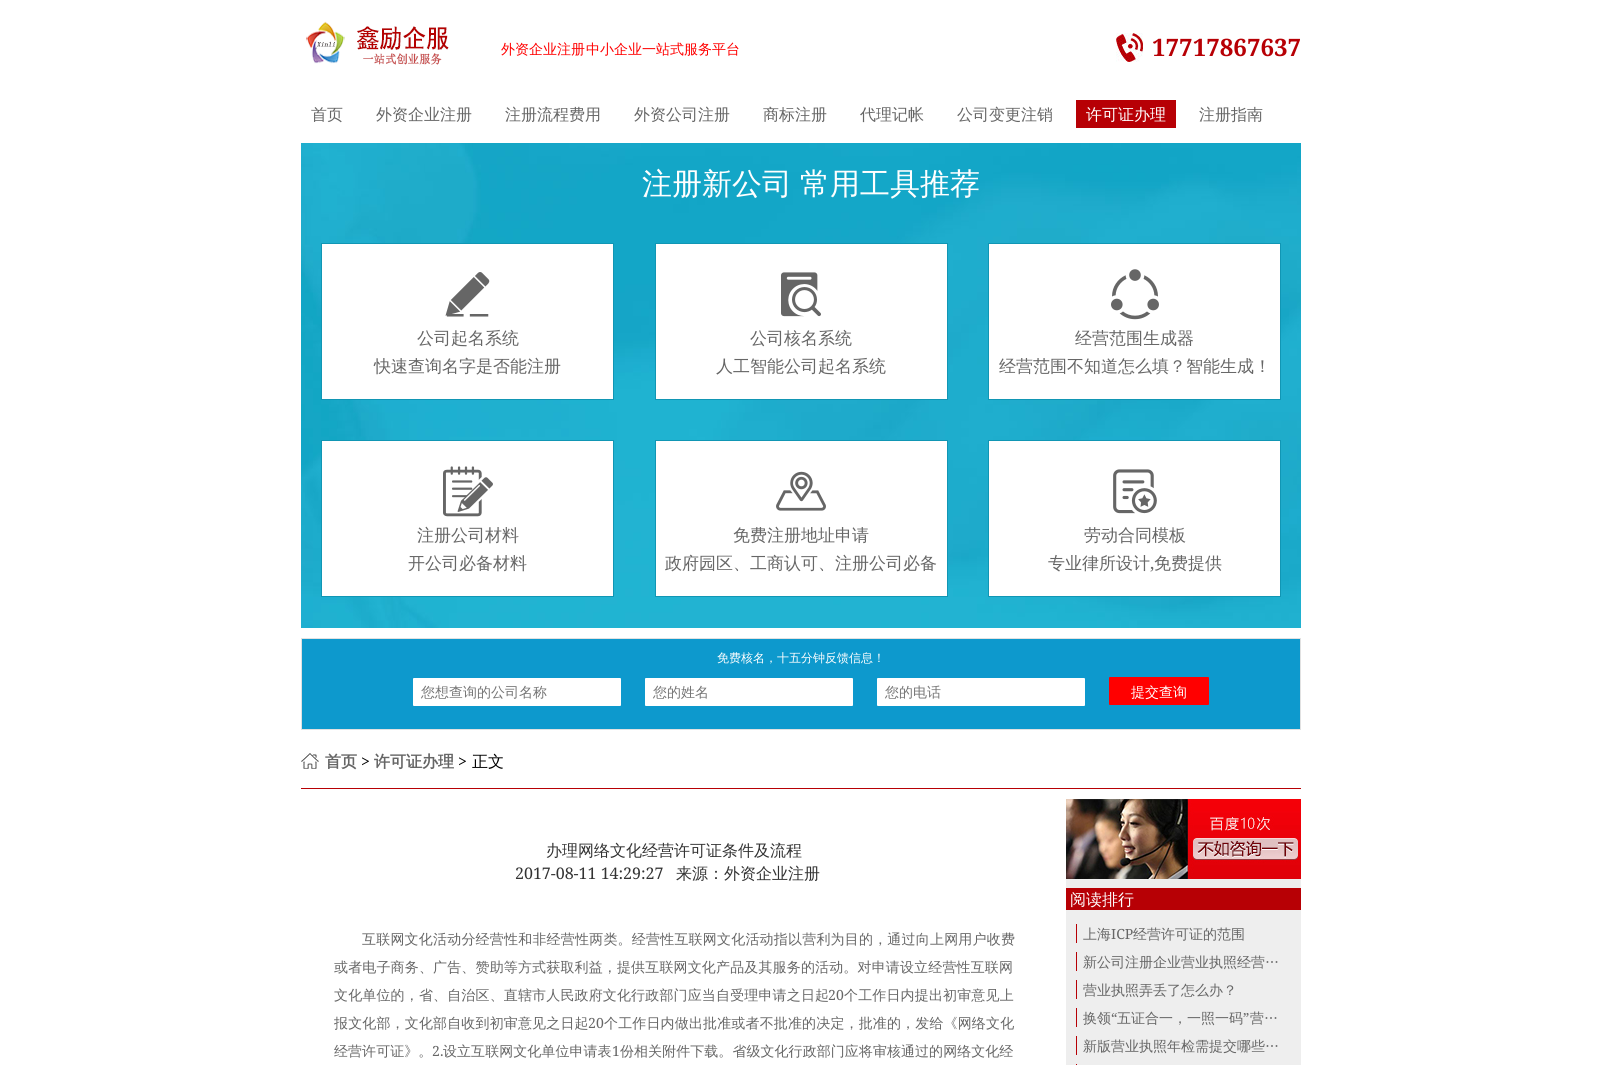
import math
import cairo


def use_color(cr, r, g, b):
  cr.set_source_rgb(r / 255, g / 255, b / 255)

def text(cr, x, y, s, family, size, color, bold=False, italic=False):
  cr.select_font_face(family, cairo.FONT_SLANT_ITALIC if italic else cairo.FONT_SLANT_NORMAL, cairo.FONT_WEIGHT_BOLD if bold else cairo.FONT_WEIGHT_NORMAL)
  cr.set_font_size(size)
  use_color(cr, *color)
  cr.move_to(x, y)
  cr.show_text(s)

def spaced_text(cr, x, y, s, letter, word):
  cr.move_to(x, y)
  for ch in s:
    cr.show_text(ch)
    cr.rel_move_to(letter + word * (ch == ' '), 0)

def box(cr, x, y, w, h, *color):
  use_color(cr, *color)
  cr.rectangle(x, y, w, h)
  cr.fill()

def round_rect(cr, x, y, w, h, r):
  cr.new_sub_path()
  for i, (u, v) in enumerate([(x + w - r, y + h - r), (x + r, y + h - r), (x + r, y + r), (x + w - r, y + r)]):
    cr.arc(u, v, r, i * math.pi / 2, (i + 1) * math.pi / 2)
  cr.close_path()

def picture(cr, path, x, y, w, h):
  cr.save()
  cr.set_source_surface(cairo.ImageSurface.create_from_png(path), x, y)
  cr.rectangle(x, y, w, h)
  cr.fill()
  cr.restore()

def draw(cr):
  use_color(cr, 255, 255, 255)
  cr.paint()
  picture(cr, "img_01.png", 306, 21, 143, 44)
  picture(cr, "img_02.png", 1116, 33, 27, 29)
  box(cr, 1076, 100, 100, 28, 183, 0, 5)
  picture(cr, "img_03.png", 301, 143, 1000, 485)
  use_color(cr, 255, 255, 255)
  cr.rectangle(321.5, 243.5, 292, 156)
  cr.fill_preserve()
  use_color(cr, 17, 150, 180)
  cr.set_line_width(1)
  cr.stroke()
  picture(cr, "img_04.png", 445, 272, 45, 45)
  use_color(cr, 255, 255, 255)
  cr.rectangle(655.5, 243.5, 292, 156)
  cr.fill_preserve()
  use_color(cr, 17, 150, 180)
  cr.stroke()
  picture(cr, "img_05.png", 781, 272, 40, 45)
  use_color(cr, 255, 255, 255)
  cr.rectangle(988.5, 243.5, 292, 156)
  cr.fill_preserve()
  use_color(cr, 17, 150, 180)
  cr.stroke()
  picture(cr, "img_06.png", 1111, 269, 48, 51)
  use_color(cr, 255, 255, 255)
  cr.rectangle(321.5, 440.5, 292, 156)
  cr.fill_preserve()
  use_color(cr, 17, 150, 180)
  cr.stroke()
  picture(cr, "img_07.png", 443, 466, 50, 51)
  use_color(cr, 255, 255, 255)
  cr.rectangle(655.5, 440.5, 292, 156)
  cr.fill_preserve()
  use_color(cr, 17, 150, 180)
  cr.stroke()
  picture(cr, "img_08.png", 776, 471, 50, 40)
  use_color(cr, 255, 255, 255)
  cr.rectangle(988.5, 440.5, 292, 156)
  cr.fill_preserve()
  use_color(cr, 17, 150, 180)
  cr.stroke()
  picture(cr, "img_09.png", 1113, 469, 44, 45)
  use_color(cr, 13, 153, 205)
  cr.rectangle(301.5, 638.5, 999, 91)
  cr.fill_preserve()
  use_color(cr, 225, 225, 225)
  cr.stroke()
  use_color(cr, 255, 255, 255)
  round_rect(cr, 413, 678, 208, 28, 1)
  cr.fill()
  round_rect(cr, 645, 678, 208, 28, 1)
  cr.fill()
  round_rect(cr, 877, 678, 208, 28, 1)
  cr.fill()
  use_color(cr, 255, 0, 0)
  round_rect(cr, 1109, 677, 100, 28, 1)
  cr.fill()
  picture(cr, "img_10.png", 301, 753, 18, 16)
  box(cr, 301, 788, 1000, 1, 183, 0, 5)
  box(cr, 1066, 879, 235, 9, 238, 238, 238)
  picture(cr, "img_11.png", 1066, 799, 235, 80)
  box(cr, 1066, 910, 235, 155, 238, 238, 238)
  box(cr, 1066, 888, 235, 22, 183, 0, 5)
  box(cr, 1076, 924, 1, 19, 183, 0, 5)
  box(cr, 1076, 952, 1, 19, 183, 0, 5)
  box(cr, 1076, 980, 1, 19, 183, 0, 5)
  box(cr, 1076, 1008, 1, 19, 183, 0, 5)
  box(cr, 1076, 1036, 1, 19, 183, 0, 5)
  box(cr, 1076, 1064, 1, 1, 183, 0, 5)
  text(cr, 501, 54, "外资企业注册", "WenQuanYi Zen Hei Medium", 14, (255, 0, 0))
  text(cr, 586, 54, "中小企业一站式服务平台", "WenQuanYi Zen Hei Medium", 14, (255, 0, 0))
  text(cr, 1152, 56, "17717867637", "Noto Serif", 24, (183, 0, 5), bold=True)
  text(cr, 311, 120, "首页", "WenQuanYi Zen Hei Medium", 16, (102, 102, 102))
  text(cr, 376, 120, "外资企业注册", "WenQuanYi Zen Hei Medium", 16, (102, 102, 102))
  text(cr, 505, 120, "注册流程费用", "WenQuanYi Zen Hei Medium", 16, (102, 102, 102))
  text(cr, 634, 120, "外资公司注册", "WenQuanYi Zen Hei Medium", 16, (102, 102, 102))
  text(cr, 763, 120, "商标注册", "WenQuanYi Zen Hei Medium", 16, (102, 102, 102))
  text(cr, 860, 120, "代理记帐", "WenQuanYi Zen Hei Medium", 16, (102, 102, 102))
  text(cr, 957, 120, "公司变更注销", "WenQuanYi Zen Hei Medium", 16, (102, 102, 102))
  text(cr, 1086, 120, "许可证办理", "WenQuanYi Zen Hei Medium", 16, (255, 255, 255))
  text(cr, 1199, 120, "注册指南", "WenQuanYi Zen Hei Medium", 16, (102, 102, 102))
  text(cr, 642, 194, "注册新公司", "WenQuanYi Zen Hei Medium", 30, (255, 255, 255))
  text(cr, 800, 194, "常用工具推荐", "WenQuanYi Zen Hei Medium", 30, (255, 255, 255))
  text(cr, 417, 344, "公司起名系统", "WenQuanYi Zen Hei Medium", 17, (102, 102, 102))
  text(cr, 374, 372, "快速查询名字是否能注册", "WenQuanYi Zen Hei Medium", 17, (102, 102, 102))
  text(cr, 750, 344, "公司核名系统", "WenQuanYi Zen Hei Medium", 17, (102, 102, 102))
  text(cr, 716, 372, "人工智能公司起名系统", "WenQuanYi Zen Hei Medium", 17, (102, 102, 102))
  text(cr, 1075, 344, "经营范围生成器", "WenQuanYi Zen Hei Medium", 17, (102, 102, 102))
  text(cr, 999, 372, "经营范围不知道怎么填？智能生成！", "WenQuanYi Zen Hei Medium", 17, (102, 102, 102))
  text(cr, 417, 541, "注册公司材料", "WenQuanYi Zen Hei Medium", 17, (102, 102, 102))
  text(cr, 408, 569, "开公司必备材料", "WenQuanYi Zen Hei Medium", 17, (102, 102, 102))
  text(cr, 733, 541, "免费注册地址申请", "WenQuanYi Zen Hei Medium", 17, (102, 102, 102))
  text(cr, 665, 569, "政府园区、工商认可、注册公司必备", "WenQuanYi Zen Hei Medium", 17, (102, 102, 102))
  text(cr, 1084, 541, "劳动合同模板", "WenQuanYi Zen Hei Medium", 17, (102, 102, 102))
  text(cr, 1048, 569, "专业律所设计", "WenQuanYi Zen Hei Medium", 17, (102, 102, 102))
  text(cr, 1150, 569, ",", "Noto Serif", 17, (102, 102, 102))
  text(cr, 1154, 569, "免费提供", "WenQuanYi Zen Hei Medium", 17, (102, 102, 102))
  text(cr, 717, 662, "免费核名，十五分钟反馈信息！", "WenQuanYi Zen Hei Medium", 12, (255, 255, 255))
  text(cr, 421, 697, "您想查询的公司名称", "WenQuanYi Zen Hei Medium", 14, (117, 117, 117))
  text(cr, 653, 697, "您的姓名", "WenQuanYi Zen Hei Medium", 14, (117, 117, 117))
  text(cr, 885, 697, "您的电话", "WenQuanYi Zen Hei Medium", 14, (117, 117, 117))
  text(cr, 1131, 697, "提交查询", "WenQuanYi Zen Hei Medium", 14, (255, 255, 255))
  text(cr, 325, 767, "首页", "WenQuanYi Zen Hei", 16, (102, 102, 102), bold=True)
  text(cr, 361, 767, ">", "Noto Serif", 16, (0, 0, 0))
  text(cr, 374, 767, "许可证办理", "WenQuanYi Zen Hei", 16, (102, 102, 102), bold=True)
  text(cr, 458, 767, ">", "Noto Serif", 16, (0, 0, 0))
  text(cr, 472, 767, "正文", "WenQuanYi Zen Hei Medium", 16, (0, 0, 0))
  text(cr, 546, 856, "办理网络文化经营许可证条件及流程", "WenQuanYi Zen Hei Medium", 16, (51, 51, 51))
  text(cr, 515, 879, "2017-08-11 14:29:27", "Noto Serif", 16, (51, 51, 51))
  text(cr, 676, 879, "来源：外资企业注册", "WenQuanYi Zen Hei Medium", 16, (51, 51, 51))
  cr.set_font_size(14)
  use_color(cr, 102, 102, 102)
  spaced_text(cr, 362, 944, "互联网文化活动分经营性和非经营性两类。经营性互联网文化活动指以营利为目的，通过向上网用户收费", 0.2, 0)
  spaced_text(cr, 334, 972, "或者电子商务、广告、赞助等方式获取利益，提供互联网文化产品及其服务的活动。对申请设立经营性互联网", 0.15, 0)
  spaced_text(cr, 334, 1000, "文化单位的，省、自治区、直辖市人民政府文化行政部门应当自受理申请之日起", 0.15, 0)
  cr.select_font_face("Noto Serif")
  spaced_text(cr, 828, 1000, "20", 0.15, 0)
  cr.select_font_face("WenQuanYi Zen Hei Medium")
  spaced_text(cr, 844, 1000, "个工作日内提出初审意见上", 0.15, 0)
  cr.save()
  cr.rectangle(334, 925, 680, 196)
  cr.clip()
  spaced_text(cr, 334, 1028, "报文化部，文化部自收到初审意见之日起", 0.15, 0)
  cr.restore()
  cr.select_font_face("Noto Serif")
  spaced_text(cr, 588, 1028, "20", 0.15, 0)
  cr.select_font_face("WenQuanYi Zen Hei Medium")
  spaced_text(cr, 604, 1028, "个工作日内做出批准或者不批准的决定，批准的，发给《网络文化", 0.15, 0)
  spaced_text(cr, 334, 1056, "经营许可证》。", 0.05, 0)
  cr.select_font_face("Noto Serif")
  spaced_text(cr, 432, 1056, "2.", 0.05, 0)
  cr.select_font_face("WenQuanYi Zen Hei Medium")
  spaced_text(cr, 443, 1056, "设立互联网文化单位申请表", 0.05, 0)
  cr.select_font_face("Noto Serif")
  spaced_text(cr, 612, 1056, "1", 0.05, 0)
  cr.select_font_face("WenQuanYi Zen Hei Medium")
  spaced_text(cr, 620, 1056, "份相关附件下载。省级文化行政部门应将审核通过的网络文化经", 0.05, 0)
  text(cr, 1070, 905, "阅读排行", "WenQuanYi Zen Hei Medium", 16, (255, 255, 255))
  text(cr, 1083, 939, "上海", "WenQuanYi Zen Hei Medium", 14, (102, 102, 102))
  text(cr, 1111, 939, "ICP", "Noto Serif", 14, (102, 102, 102))
  text(cr, 1133, 939, "经营许可证的范围", "WenQuanYi Zen Hei Medium", 14, (102, 102, 102))
  text(cr, 1083, 967, "新公司注册企业营业执照经营…", "WenQuanYi Zen Hei Medium", 14, (102, 102, 102))
  text(cr, 1083, 995, "营业执照弄丢了怎么办？", "WenQuanYi Zen Hei Medium", 14, (102, 102, 102))
  text(cr, 1083, 1023, "换领", "WenQuanYi Zen Hei Medium", 14, (102, 102, 102))
  text(cr, 1111, 1023, "“", "Noto Serif", 14, (102, 102, 102))
  text(cr, 1117, 1023, "五证合一，一照一码", "WenQuanYi Zen Hei Medium", 14, (102, 102, 102))
  text(cr, 1243, 1023, "”", "Noto Serif", 14, (102, 102, 102))
  text(cr, 1250, 1023, "营…", "WenQuanYi Zen Hei Medium", 14, (102, 102, 102))
  text(cr, 1083, 1051, "新版营业执照年检需提交哪些…", "WenQuanYi Zen Hei Medium", 14, (102, 102, 102))


surface = cairo.ImageSurface(cairo.FORMAT_RGB24, 1602, 1065)
cr = cairo.Context(surface)
options = cairo.FontOptions()
options.set_hint_metrics(cairo.HINT_METRICS_OFF)
options.set_hint_style(cairo.HINT_STYLE_NONE)
cr.set_font_options(options)
cr.set_miter_limit(4)
draw(cr)
surface.write_to_png("out.png")
